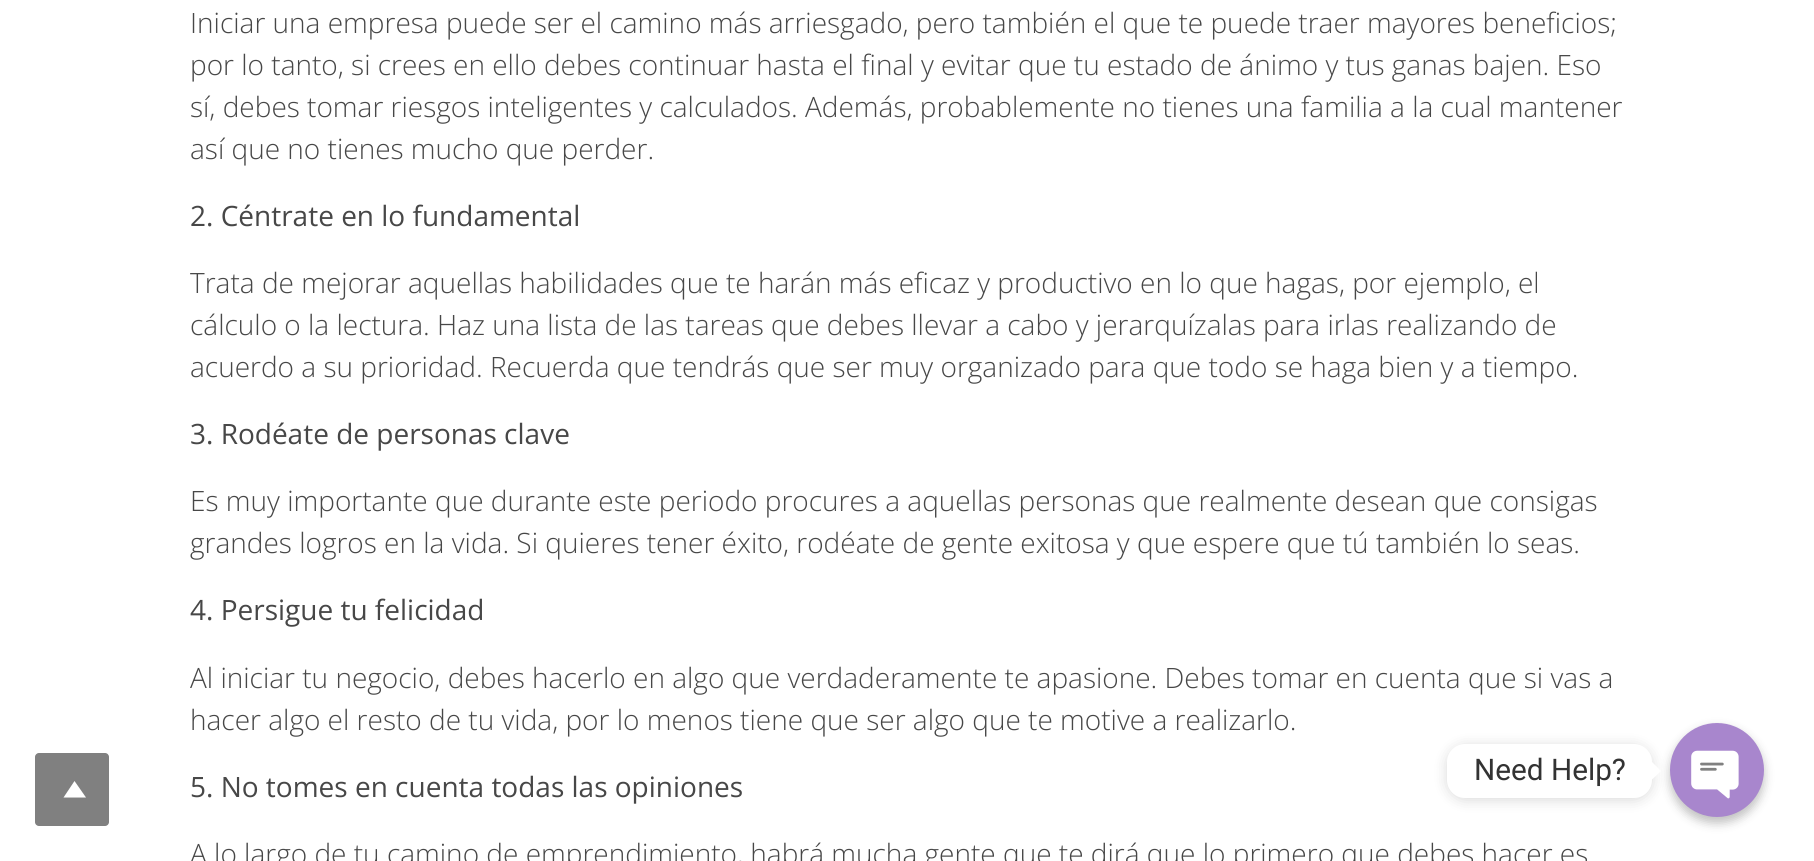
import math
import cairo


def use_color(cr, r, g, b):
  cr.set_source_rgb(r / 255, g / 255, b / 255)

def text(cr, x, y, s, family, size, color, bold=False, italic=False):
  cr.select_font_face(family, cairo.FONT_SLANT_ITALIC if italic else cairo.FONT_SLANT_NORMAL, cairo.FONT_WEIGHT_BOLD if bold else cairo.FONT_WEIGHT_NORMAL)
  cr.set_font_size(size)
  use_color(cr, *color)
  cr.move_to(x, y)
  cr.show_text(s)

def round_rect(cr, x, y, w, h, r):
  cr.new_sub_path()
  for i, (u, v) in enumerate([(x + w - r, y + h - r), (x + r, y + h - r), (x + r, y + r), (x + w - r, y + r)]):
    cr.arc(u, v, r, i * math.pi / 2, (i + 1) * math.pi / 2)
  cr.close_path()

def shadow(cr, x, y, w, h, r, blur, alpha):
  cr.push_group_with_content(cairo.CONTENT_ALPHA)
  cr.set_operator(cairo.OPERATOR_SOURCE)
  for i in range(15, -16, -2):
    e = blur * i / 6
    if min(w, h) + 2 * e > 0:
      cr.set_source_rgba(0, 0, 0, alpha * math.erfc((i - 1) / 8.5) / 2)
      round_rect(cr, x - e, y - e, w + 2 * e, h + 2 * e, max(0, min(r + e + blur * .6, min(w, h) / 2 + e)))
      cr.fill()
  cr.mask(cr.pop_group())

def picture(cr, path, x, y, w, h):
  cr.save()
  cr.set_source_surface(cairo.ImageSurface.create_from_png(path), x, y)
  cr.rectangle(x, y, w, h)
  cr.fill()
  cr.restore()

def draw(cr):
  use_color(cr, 255, 255, 255)
  cr.paint()
  use_color(cr, 128, 128, 128)
  round_rect(cr, 35, 753, 74, 73, 4)
  cr.fill()
  use_color(cr, 255, 255, 255)
  cr.new_path()
  cr.move_to(74.5, 781)
  cr.line_to(63.5, 797.5)
  cr.line_to(86, 797.5)
  cr.close_path()
  cr.fill()
  use_color(cr, 0, 0, 0)
  shadow(cr, 1447, 746, 205, 54, 18, 7, 0.15)
  use_color(cr, 255, 255, 255)
  round_rect(cr, 1447, 744, 205, 54, 18)
  cr.fill()
  cr.new_path()
  cr.move_to(1652, 779.5)
  cr.line_to(1652, 762)
  cr.line_to(1661, 771)
  cr.close_path()
  cr.fill()
  use_color(cr, 0, 0, 0)
  shadow(cr, 1670, 728, 94, 95, 47, 5, 0.25)
  picture(cr, "img_01.png", 1670, 723, 94, 94)
  text(cr, 190, 33, "Iniciar una empresa puede ser el camino más arriesgado, pero también el que te puede traer mayores beneficios;", "Open Sans Light", 28, (71, 71, 71))
  text(cr, 190, 75, "por lo tanto, si crees en ello debes continuar hasta el final y evitar que tu estado de ánimo y tus ganas bajen. Eso", "Open Sans Light", 28, (71, 71, 71))
  text(cr, 190, 117, "sí, debes tomar riesgos inteligentes y calculados. Además, probablemente no tienes una familia a la cual mantener", "Open Sans Light", 28, (71, 71, 71))
  text(cr, 190, 159, "así que no tienes mucho que perder.", "Open Sans Light", 28, (71, 71, 71))
  text(cr, 190, 226, "2. Céntrate en lo fundamental", "Open Sans", 28, (71, 71, 71))
  text(cr, 190, 293, "Trata de mejorar aquellas habilidades que te harán más eficaz y productivo en lo que hagas, por ejemplo, el", "Open Sans Light", 28, (71, 71, 71))
  text(cr, 190, 335, "cálculo o la lectura. Haz una lista de las tareas que debes llevar a cabo y jerarquízalas para irlas realizando de", "Open Sans Light", 28, (71, 71, 71))
  text(cr, 190, 377, "acuerdo a su prioridad. Recuerda que tendrás que ser muy organizado para que todo se haga bien y a tiempo.", "Open Sans Light", 28, (71, 71, 71))
  text(cr, 190, 444, "3. Rodéate de personas clave", "Open Sans", 28, (71, 71, 71))
  text(cr, 190, 511, "Es muy importante que durante este periodo procures a aquellas personas que realmente desean que consigas", "Open Sans Light", 28, (71, 71, 71))
  text(cr, 190, 553, "grandes logros en la vida. Si quieres tener éxito, rodéate de gente exitosa y que espere que tú también lo seas.", "Open Sans Light", 28, (71, 71, 71))
  text(cr, 190, 620, "4. Persigue tu felicidad", "Open Sans", 28, (71, 71, 71))
  text(cr, 190, 688, "Al iniciar tu negocio, debes hacerlo en algo que verdaderamente te apasione. Debes tomar en cuenta que si vas a", "Open Sans Light", 28, (71, 71, 71))
  text(cr, 190, 730, "hacer algo el resto de tu vida, por lo menos tiene que ser algo que te motive a realizarlo.", "Open Sans Light", 28, (71, 71, 71))
  text(cr, 190, 797, "5. No tomes en cuenta todas las opiniones", "Open Sans", 28, (71, 71, 71))
  text(cr, 190, 864, "A lo largo de tu camino de emprendimiento, habrá mucha gente que te dirá que lo primero que debes hacer es", "Open Sans Light", 28, (71, 71, 71))
  text(cr, 1474, 780, "Need Help?", "Roboto", 29.75, (51, 51, 51))


surface = cairo.ImageSurface(cairo.FORMAT_RGB24, 1814, 861)
cr = cairo.Context(surface)
options = cairo.FontOptions()
options.set_hint_metrics(cairo.HINT_METRICS_OFF)
options.set_hint_style(cairo.HINT_STYLE_NONE)
cr.set_font_options(options)
cr.set_miter_limit(4)
draw(cr)
surface.write_to_png("out.png")
